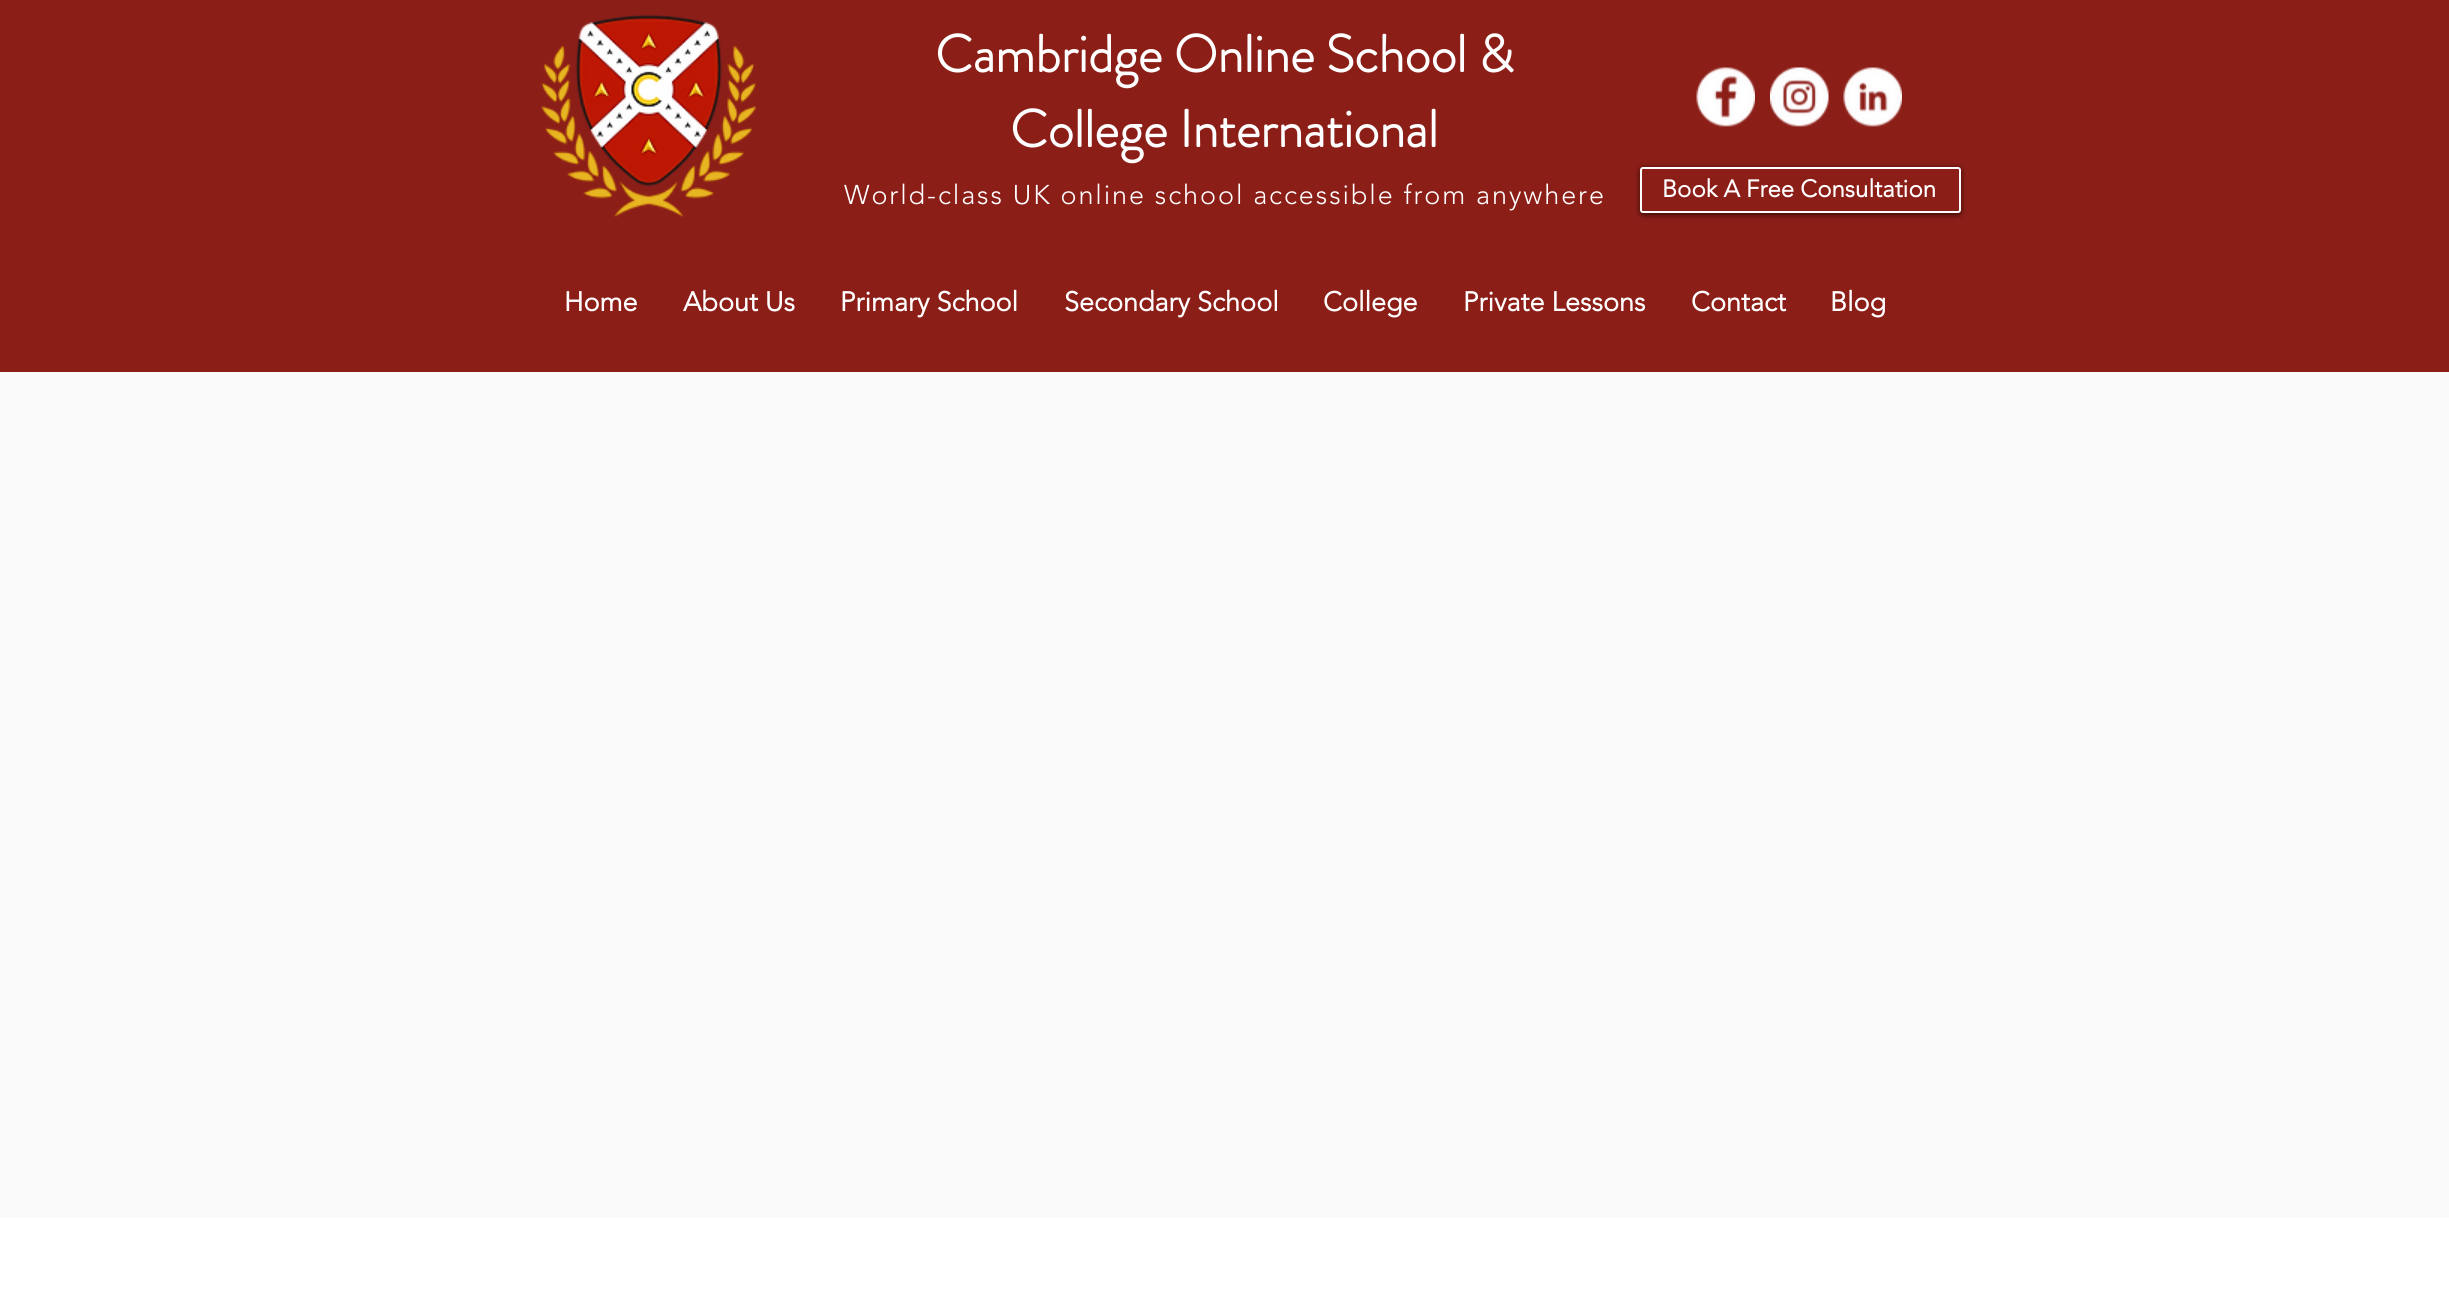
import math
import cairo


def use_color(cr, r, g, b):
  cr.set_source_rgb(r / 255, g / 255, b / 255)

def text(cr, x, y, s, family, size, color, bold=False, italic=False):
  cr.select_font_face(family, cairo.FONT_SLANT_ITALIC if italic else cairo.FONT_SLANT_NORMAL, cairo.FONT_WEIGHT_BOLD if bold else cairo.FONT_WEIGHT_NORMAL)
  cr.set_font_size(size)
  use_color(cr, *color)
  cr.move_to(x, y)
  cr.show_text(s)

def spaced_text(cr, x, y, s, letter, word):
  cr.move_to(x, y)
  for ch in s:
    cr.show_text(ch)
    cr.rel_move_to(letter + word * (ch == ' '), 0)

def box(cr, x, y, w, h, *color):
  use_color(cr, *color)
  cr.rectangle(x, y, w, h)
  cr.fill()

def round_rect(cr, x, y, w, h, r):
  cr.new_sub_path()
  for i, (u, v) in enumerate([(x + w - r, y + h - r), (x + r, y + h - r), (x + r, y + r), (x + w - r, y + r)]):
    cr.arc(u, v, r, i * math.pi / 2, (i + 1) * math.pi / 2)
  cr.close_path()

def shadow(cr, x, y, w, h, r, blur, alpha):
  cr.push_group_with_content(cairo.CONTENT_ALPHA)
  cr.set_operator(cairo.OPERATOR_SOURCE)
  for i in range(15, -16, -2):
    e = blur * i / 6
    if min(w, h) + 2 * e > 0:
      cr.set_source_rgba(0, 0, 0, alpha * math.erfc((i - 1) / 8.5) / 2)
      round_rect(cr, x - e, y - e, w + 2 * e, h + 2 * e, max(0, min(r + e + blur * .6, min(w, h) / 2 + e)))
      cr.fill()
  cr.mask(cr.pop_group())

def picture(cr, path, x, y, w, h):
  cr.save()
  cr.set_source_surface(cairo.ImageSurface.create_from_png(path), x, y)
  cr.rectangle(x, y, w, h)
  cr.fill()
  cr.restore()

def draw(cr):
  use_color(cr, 255, 255, 255)
  cr.paint()
  box(cr, 0, 0, 2449, 372, 140, 30, 24)
  picture(cr, "img_01.png", 541, 14, 215, 203)
  picture(cr, "img_02.png", 1696, 67, 59, 60)
  picture(cr, "img_03.png", 1770, 67, 59, 60)
  picture(cr, "img_04.png", 1843, 67, 59, 60)
  use_color(cr, 0, 0, 0)
  shadow(cr, 1640, 168, 321, 47, 3, 3, 0.6)
  use_color(cr, 140, 30, 24)
  round_rect(cr, 1641, 168, 319, 44, 2)
  cr.fill_preserve()
  use_color(cr, 255, 255, 255)
  cr.stroke()
  box(cr, 0, 372, 2449, 846, 250, 250, 250)
  text(cr, 935, 72, "Cambridge Online School &", "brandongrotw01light", 52.5, (255, 255, 255), bold=True)
  text(cr, 1010, 147, "College International", "brandongrotw01light", 52.5, (255, 255, 255), bold=True)
  cr.select_font_face("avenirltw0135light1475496 Light")
  cr.set_font_size(27)
  spaced_text(cr, 844, 204, "World-class UK online school accessible from anywhere", 1.9, 0)
  text(cr, 1662, 197, "Book A Free Consultation", "avenirltw0135light1475496", 24, (255, 255, 255), bold=True)
  text(cr, 564, 311, "Home", "avenirltw0135light1475496", 27, (255, 255, 255), bold=True)
  text(cr, 683, 311, "About Us", "avenirltw0135light1475496", 27, (255, 255, 255), bold=True)
  text(cr, 840, 311, "Primary School", "avenirltw0135light1475496", 27, (255, 255, 255), bold=True)
  text(cr, 1064, 311, "Secondary School", "avenirltw0135light1475496", 27, (255, 255, 255), bold=True)
  text(cr, 1323, 311, "College", "avenirltw0135light1475496", 27, (255, 255, 255), bold=True)
  text(cr, 1463, 311, "Private Lessons", "avenirltw0135light1475496", 27, (255, 255, 255), bold=True)
  text(cr, 1691, 311, "Contact", "avenirltw0135light1475496", 27, (255, 255, 255), bold=True)
  text(cr, 1830, 311, "Blog", "avenirltw0135light1475496", 27, (255, 255, 255), bold=True)


surface = cairo.ImageSurface(cairo.FORMAT_RGB24, 2449, 1293)
cr = cairo.Context(surface)
options = cairo.FontOptions()
options.set_hint_metrics(cairo.HINT_METRICS_OFF)
options.set_hint_style(cairo.HINT_STYLE_NONE)
cr.set_font_options(options)
cr.set_miter_limit(4)
draw(cr)
surface.write_to_png("out.png")
